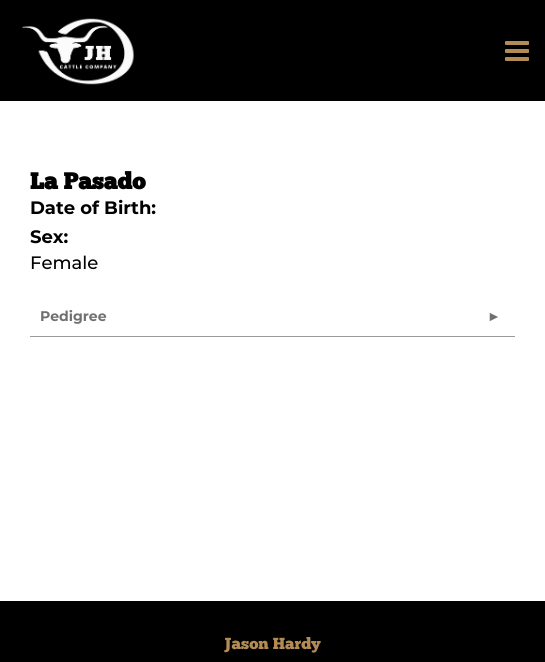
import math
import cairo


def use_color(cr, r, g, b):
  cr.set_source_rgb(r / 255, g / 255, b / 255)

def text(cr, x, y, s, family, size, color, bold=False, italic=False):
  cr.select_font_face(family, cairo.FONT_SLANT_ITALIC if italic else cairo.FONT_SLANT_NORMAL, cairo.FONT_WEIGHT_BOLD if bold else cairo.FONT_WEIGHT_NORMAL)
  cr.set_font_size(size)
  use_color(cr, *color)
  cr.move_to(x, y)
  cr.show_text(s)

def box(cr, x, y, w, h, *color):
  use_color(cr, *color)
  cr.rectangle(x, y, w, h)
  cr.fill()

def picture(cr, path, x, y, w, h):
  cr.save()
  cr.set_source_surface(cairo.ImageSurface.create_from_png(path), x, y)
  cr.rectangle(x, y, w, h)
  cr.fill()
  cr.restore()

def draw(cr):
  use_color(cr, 255, 255, 255)
  cr.paint()
  box(cr, 0, 0, 545, 101, 0, 0, 0)
  picture(cr, "img_01.png", 21, 18, 113, 67)
  picture(cr, "img_02.png", 505, 41, 24, 20)
  box(cr, 30, 336, 485, 1, 155, 153, 153)
  box(cr, 0, 601, 545, 61, 0, 0, 0)
  text(cr, 30, 189, "La Pasado", "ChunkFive", 23, (0, 0, 0), bold=True)
  text(cr, 30, 214, "Date of Birth:", "Montserrat", 18, (0, 0, 0), bold=True)
  text(cr, 30, 243, "Sex:", "Montserrat", 18, (0, 0, 0), bold=True)
  text(cr, 30, 269, "Female", "Montserrat Medium", 18, (0, 0, 0))
  text(cr, 40, 321, "Pedigree", "Montserrat", 14, (114, 111, 111), bold=True)
  text(cr, 487, 321, "►", "Liberation Sans", 14, (114, 111, 111), bold=True)
  text(cr, 224, 649, "Jason Hardy", "ChunkFive", 16, (179, 139, 84))


surface = cairo.ImageSurface(cairo.FORMAT_RGB24, 545, 662)
cr = cairo.Context(surface)
options = cairo.FontOptions()
options.set_hint_metrics(cairo.HINT_METRICS_OFF)
options.set_hint_style(cairo.HINT_STYLE_NONE)
cr.set_font_options(options)
cr.set_miter_limit(4)
draw(cr)
surface.write_to_png("out.png")
